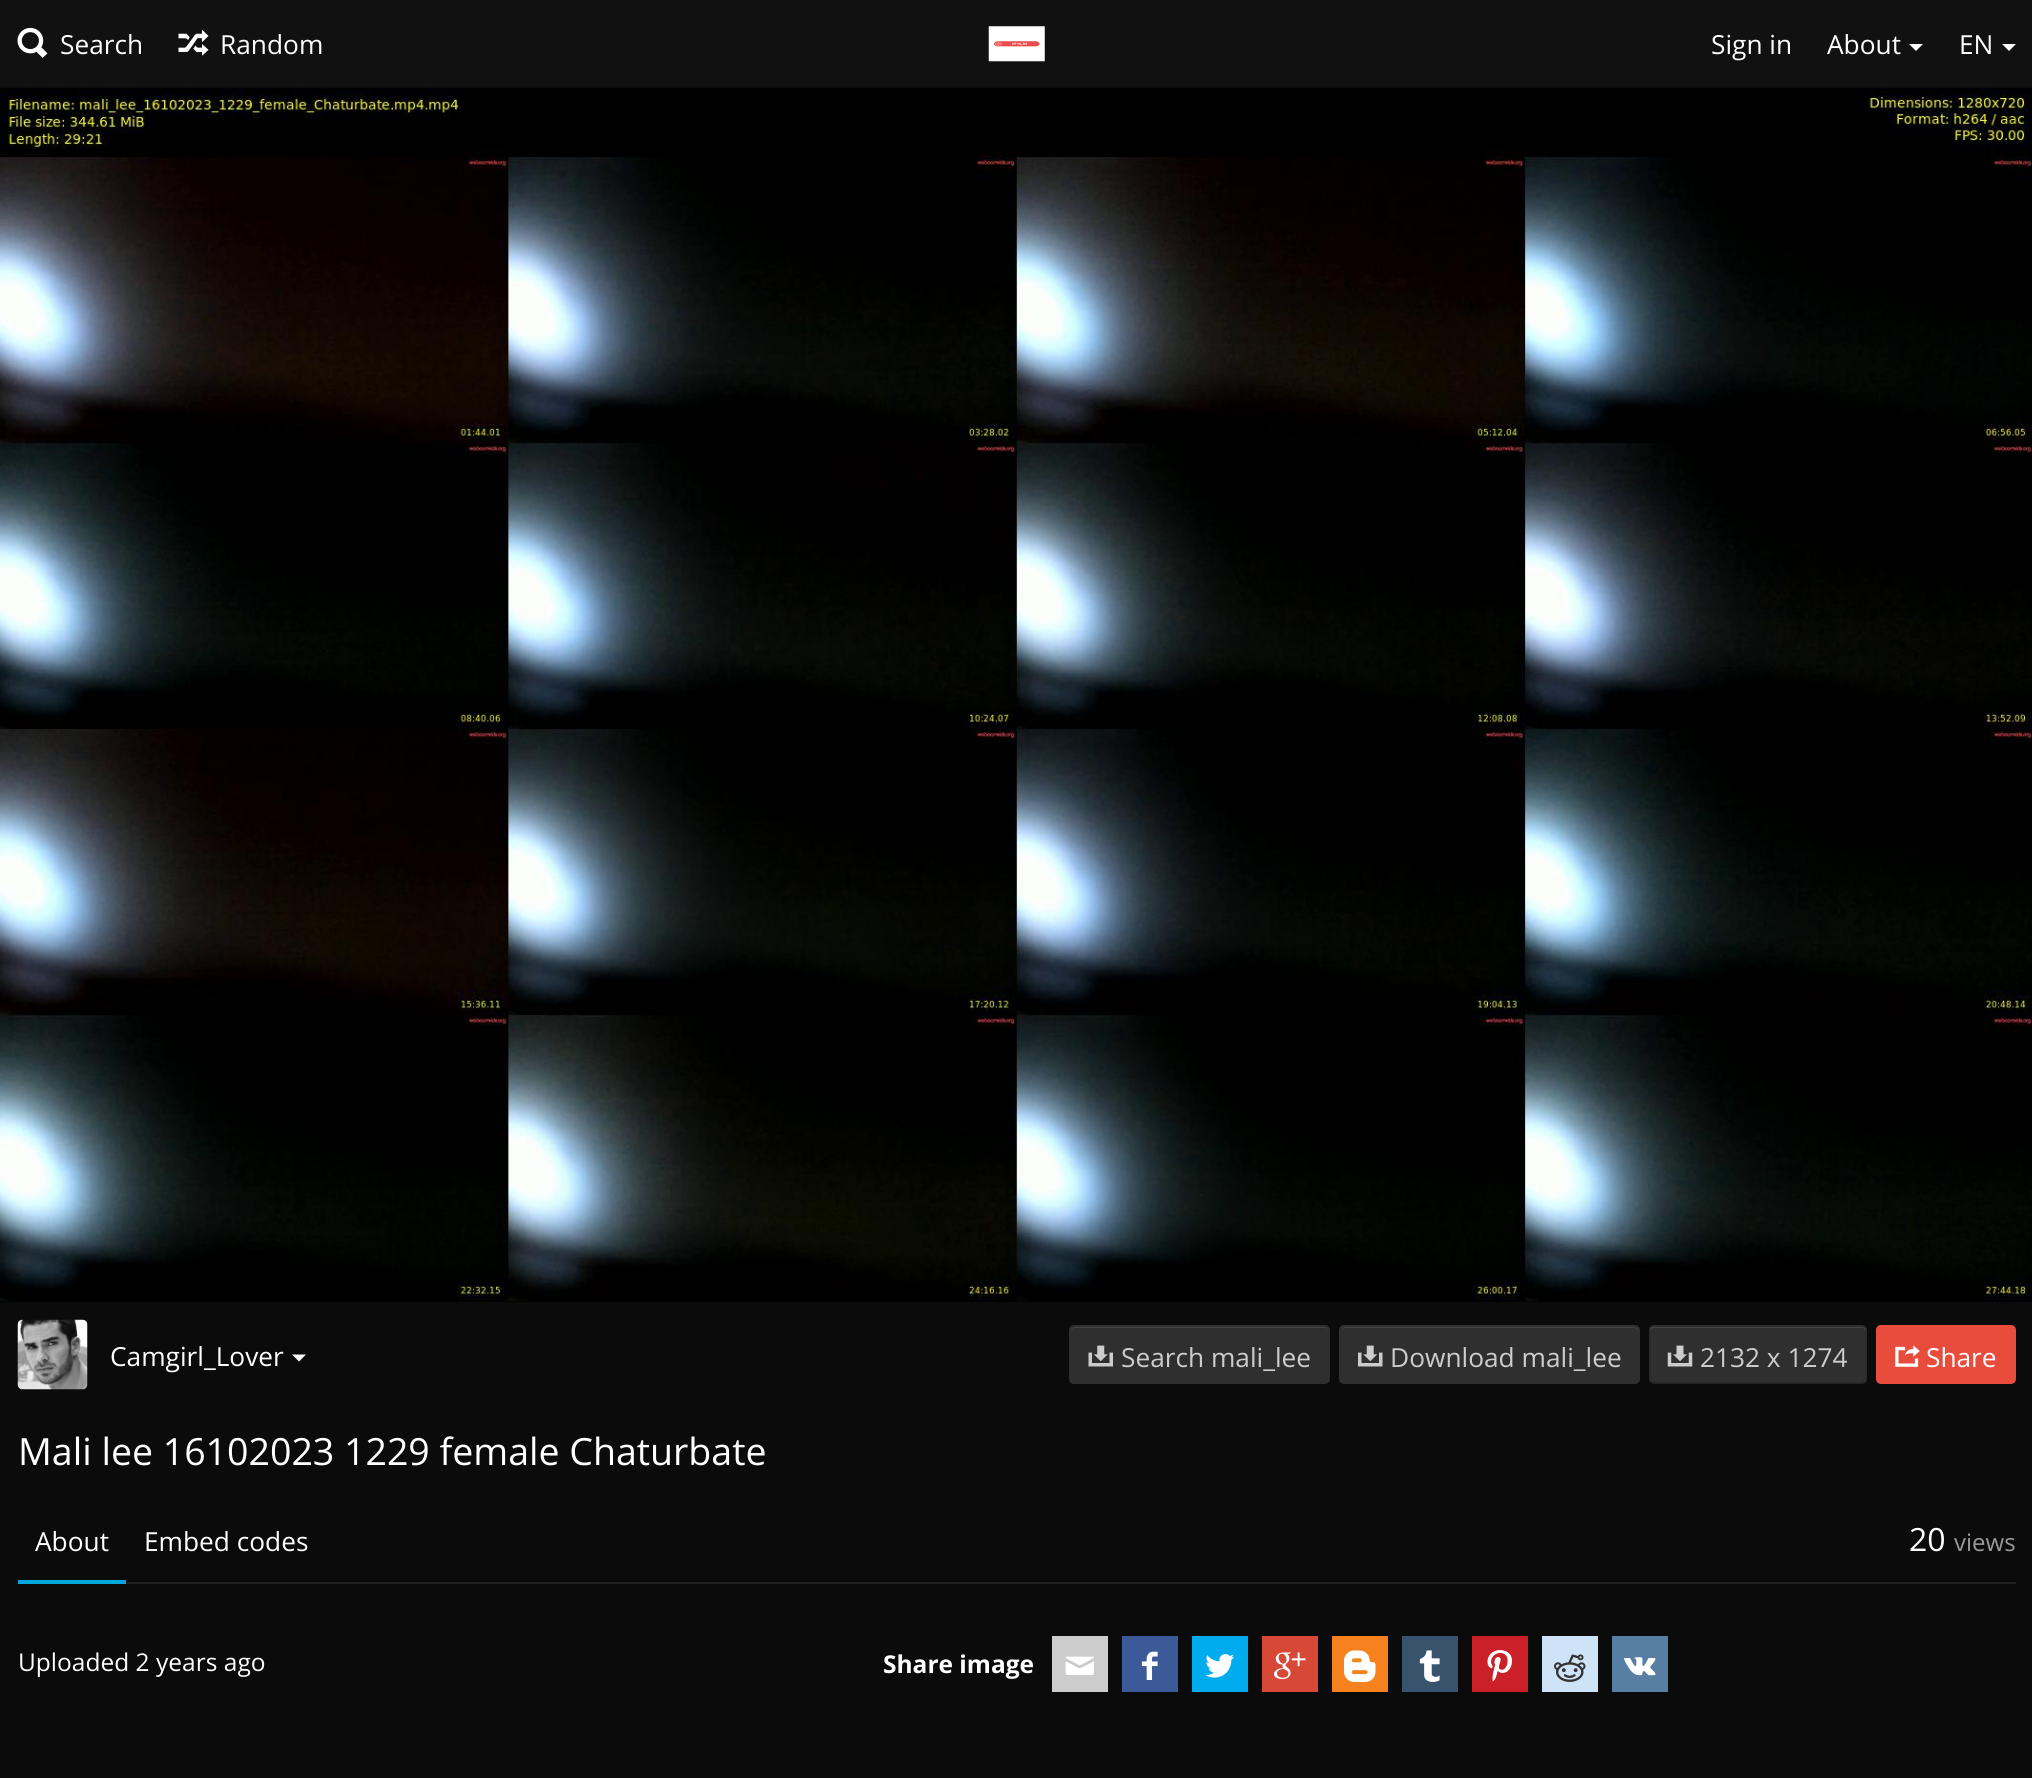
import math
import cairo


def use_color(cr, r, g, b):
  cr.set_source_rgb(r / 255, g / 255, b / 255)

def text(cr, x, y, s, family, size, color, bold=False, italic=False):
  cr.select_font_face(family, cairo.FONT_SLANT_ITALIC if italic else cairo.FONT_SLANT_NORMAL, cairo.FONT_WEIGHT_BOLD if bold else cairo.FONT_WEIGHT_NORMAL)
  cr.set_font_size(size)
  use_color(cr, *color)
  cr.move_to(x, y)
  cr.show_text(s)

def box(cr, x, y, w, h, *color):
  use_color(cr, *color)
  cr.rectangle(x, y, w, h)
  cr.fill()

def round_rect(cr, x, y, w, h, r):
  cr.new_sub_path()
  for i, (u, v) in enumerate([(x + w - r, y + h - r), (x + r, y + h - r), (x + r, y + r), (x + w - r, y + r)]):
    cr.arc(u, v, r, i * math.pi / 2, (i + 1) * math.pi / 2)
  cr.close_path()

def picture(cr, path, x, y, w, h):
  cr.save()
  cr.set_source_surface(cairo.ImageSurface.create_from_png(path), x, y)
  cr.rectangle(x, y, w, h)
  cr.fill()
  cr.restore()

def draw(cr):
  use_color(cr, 11, 11, 11)
  cr.paint()
  box(cr, 0, 0, 2032, 88, 17, 17, 17)
  picture(cr, "img_01.png", 17, 27, 31, 31)
  picture(cr, "img_02.png", 178, 29, 31, 27)
  picture(cr, "img_03.png", 988, 26, 57, 36)
  use_color(cr, 255, 255, 255)
  cr.new_path()
  cr.move_to(1909, 44)
  cr.line_to(1923, 44)
  cr.line_to(1916, 51)
  cr.close_path()
  cr.fill()
  cr.new_path()
  cr.move_to(2002, 44)
  cr.line_to(2016, 44)
  cr.line_to(2009, 51)
  cr.close_path()
  cr.fill()
  picture(cr, "img_04.png", 0, 87, 2032, 1215)
  picture(cr, "img_05.png", 17, 1319, 71, 71)
  cr.new_path()
  cr.move_to(292, 1354.5)
  cr.line_to(306, 1354.5)
  cr.line_to(299, 1361.5)
  cr.close_path()
  cr.fill()
  use_color(cr, 47, 47, 47)
  round_rect(cr, 1069, 1325, 261, 59, 5)
  cr.fill()
  use_color(cr, 68, 68, 68)
  cr.new_path()
  cr.move_to(1074, 1328)
  cr.line_to(1325, 1328)
  cr.curve_to(1327, 1328, 1328, 1330, 1328, 1332)
  cr.line_to(1328, 1331)
  cr.curve_to(1328, 1329, 1326, 1327, 1324, 1327)
  cr.line_to(1075, 1327)
  cr.curve_to(1073, 1327, 1071, 1329, 1071, 1331)
  cr.line_to(1071, 1332)
  cr.curve_to(1071, 1330, 1073, 1328, 1074, 1328)
  cr.close_path()
  cr.fill()
  picture(cr, "img_06.png", 1088, 1345, 25, 22)
  use_color(cr, 47, 47, 47)
  round_rect(cr, 1339, 1325, 301, 59, 5)
  cr.fill()
  use_color(cr, 68, 68, 68)
  cr.new_path()
  cr.move_to(1344, 1328)
  cr.line_to(1634, 1328)
  cr.curve_to(1636, 1328, 1638, 1330, 1638, 1332)
  cr.line_to(1638, 1331)
  cr.curve_to(1638, 1329, 1636, 1327, 1634, 1327)
  cr.line_to(1345, 1327)
  cr.curve_to(1344, 1327, 1342, 1328, 1342, 1329)
  cr.close_path()
  cr.fill()
  picture(cr, "img_07.png", 1358, 1345, 25, 22)
  use_color(cr, 47, 47, 47)
  round_rect(cr, 1649, 1325, 218, 59, 5)
  cr.fill()
  use_color(cr, 68, 68, 68)
  cr.new_path()
  cr.move_to(1654, 1328)
  cr.line_to(1862, 1328)
  cr.curve_to(1864, 1328, 1866, 1330, 1866, 1332)
  cr.curve_to(1866, 1329, 1865, 1327, 1862, 1327)
  cr.line_to(1652, 1327)
  cr.curve_to(1650, 1328, 1650, 1330, 1650, 1332)
  cr.curve_to(1650, 1330, 1652, 1328, 1654, 1328)
  cr.close_path()
  cr.fill()
  cr.new_path()
  cr.move_to(1865, 1382)
  cr.line_to(1862.5, 1383.5)
  cr.line_to(1688.5, 1383.5)
  cr.line_to(1654, 1383.5)
  cr.line_to(1650.5, 1382)
  cr.set_source_rgba(0, 0, 0, 0.25)
  cr.set_line_width(1.8)
  cr.stroke()
  cr.new_path()
  cr.move_to(1650.5, 1382)
  cr.curve_to(1650, 1381.5, 1649.5, 1380, 1649.5, 1379)
  cr.line_to(1649.5, 1330)
  cr.curve_to(1649.5, 1329, 1650, 1327.5, 1650.5, 1327)
  cr.curve_to(1651.5, 1326, 1652.5, 1325.5, 1654, 1325.5)
  cr.line_to(1862, 1325.5)
  cr.curve_to(1863, 1325.5, 1864.5, 1326, 1865, 1327)
  cr.curve_to(1866, 1327.5, 1866.5, 1329, 1866.5, 1330)
  cr.line_to(1866.5, 1379)
  cr.curve_to(1866.5, 1380, 1866, 1381.5, 1865, 1382)
  cr.set_source_rgba(0, 0, 0, 0.1)
  cr.stroke()
  picture(cr, "img_08.png", 1667, 1345, 26, 22)
  use_color(cr, 232, 76, 61)
  round_rect(cr, 1876, 1325, 140, 59, 5)
  cr.fill()
  picture(cr, "img_09.png", 1895, 1345, 25, 22)
  box(cr, 126, 1582, 1890, 2, 33, 33, 33)
  box(cr, 18, 1580, 108, 4, 0, 167, 218)
  box(cr, 1052, 1636, 56, 56, 204, 204, 204)
  picture(cr, "img_10.png", 1065, 1656, 29, 19)
  box(cr, 1122, 1636, 56, 56, 60, 89, 152)
  picture(cr, "img_11.png", 1141, 1651, 17, 29)
  box(cr, 1192, 1636, 56, 56, 0, 172, 238)
  picture(cr, "img_12.png", 1205, 1654, 29, 24)
  box(cr, 1262, 1636, 56, 56, 215, 72, 54)
  picture(cr, "img_13.png", 1274, 1652, 32, 28)
  box(cr, 1332, 1636, 56, 56, 245, 130, 31)
  picture(cr, "img_14.png", 1344, 1650, 32, 32)
  box(cr, 1402, 1636, 56, 56, 57, 83, 108)
  picture(cr, "img_15.png", 1419, 1650, 21, 32)
  box(cr, 1472, 1636, 56, 56, 203, 32, 39)
  picture(cr, "img_16.png", 1487, 1650, 25, 32)
  box(cr, 1542, 1636, 56, 56, 206, 227, 248)
  picture(cr, "img_17.png", 1554, 1654, 32, 28)
  box(cr, 1612, 1636, 56, 56, 88, 126, 163)
  picture(cr, "img_18.png", 1624, 1657, 32, 19)
  text(cr, 60, 54, "Search", "Open Sans", 26.25, (255, 255, 255))
  text(cr, 220, 54, "Random", "Open Sans", 26.25, (255, 255, 255))
  text(cr, 1711, 54, "Sign in", "Open Sans", 26.25, (255, 255, 255))
  text(cr, 1827, 54, "About", "Open Sans", 26.25, (255, 255, 255))
  text(cr, 1959, 54, "EN", "Open Sans", 26.25, (255, 255, 255))
  text(cr, 110, 1366, "Camgirl_Lover", "Open Sans", 26.25, (255, 255, 255))
  text(cr, 1121, 1367, "Search mali_lee", "Open Sans", 26.25, (204, 204, 204))
  text(cr, 1390, 1367, "Download mali_lee", "Open Sans", 26.25, (204, 204, 204))
  text(cr, 1700, 1367, "2132 x 1274", "Open Sans", 26.25, (204, 204, 204))
  text(cr, 1926, 1367, "Share", "Open Sans", 26.25, (255, 255, 255))
  text(cr, 18, 1465, "Mali lee 16102023 1229 female Chaturbate", "Open Sans", 37.5, (255, 255, 255))
  text(cr, 35, 1551, "About", "Open Sans", 26.25, (255, 255, 255))
  text(cr, 144, 1551, "Embed codes", "Open Sans", 26.25, (255, 255, 255))
  text(cr, 1909, 1551, "20", "Open Sans", 32, (255, 255, 255))
  text(cr, 1954, 1551, "views", "Open Sans", 24, (153, 153, 153))
  text(cr, 18, 1671, "Uploaded 2 years ago", "Open Sans", 24.5, (255, 255, 255))
  text(cr, 883, 1673, "Share image", "Open Sans", 24.5, (255, 255, 255), bold=True)


surface = cairo.ImageSurface(cairo.FORMAT_RGB24, 2032, 1778)
cr = cairo.Context(surface)
options = cairo.FontOptions()
options.set_hint_metrics(cairo.HINT_METRICS_OFF)
options.set_hint_style(cairo.HINT_STYLE_NONE)
cr.set_font_options(options)
cr.set_miter_limit(4)
draw(cr)
surface.write_to_png("out.png")
